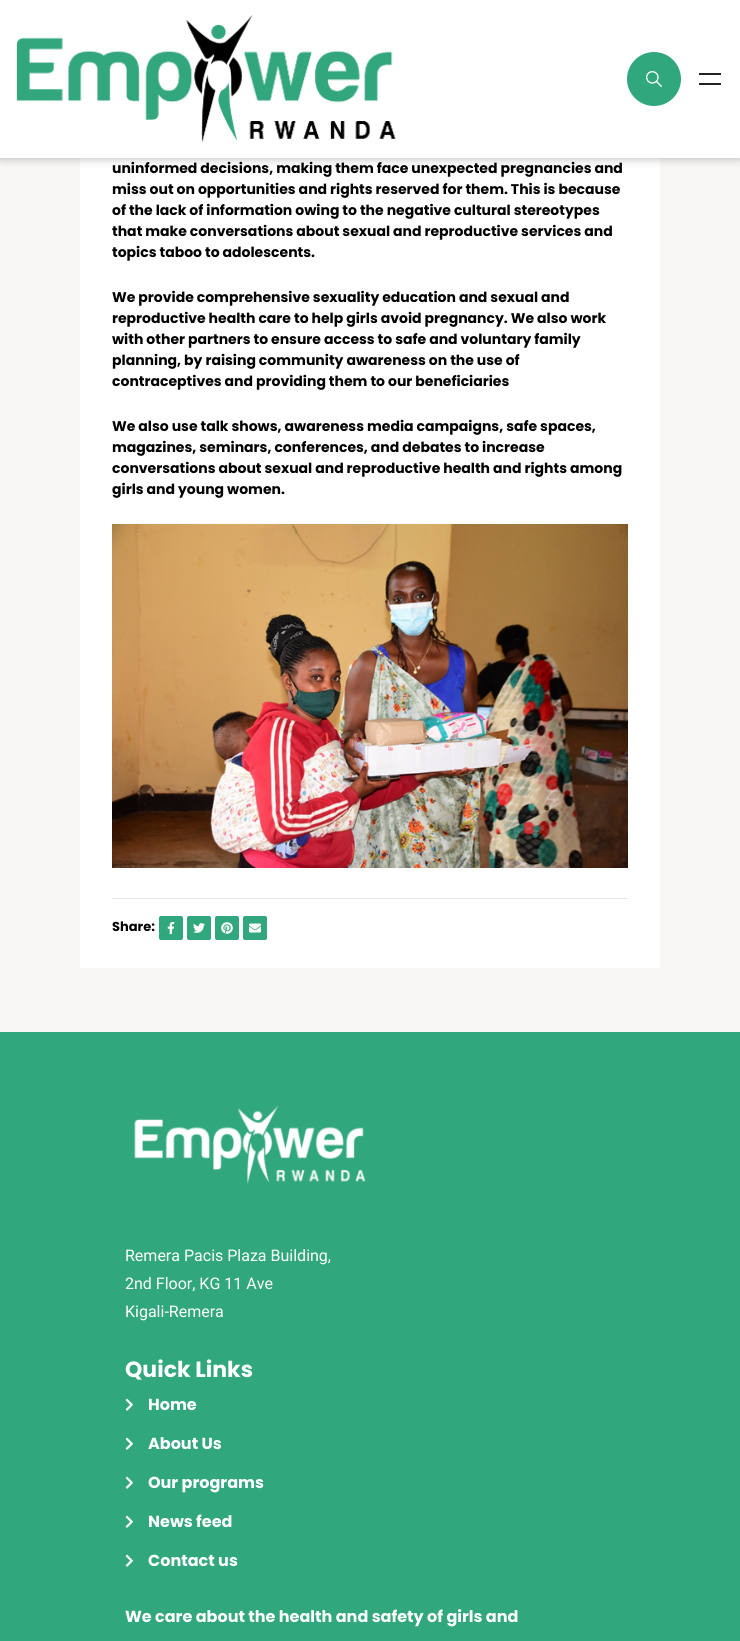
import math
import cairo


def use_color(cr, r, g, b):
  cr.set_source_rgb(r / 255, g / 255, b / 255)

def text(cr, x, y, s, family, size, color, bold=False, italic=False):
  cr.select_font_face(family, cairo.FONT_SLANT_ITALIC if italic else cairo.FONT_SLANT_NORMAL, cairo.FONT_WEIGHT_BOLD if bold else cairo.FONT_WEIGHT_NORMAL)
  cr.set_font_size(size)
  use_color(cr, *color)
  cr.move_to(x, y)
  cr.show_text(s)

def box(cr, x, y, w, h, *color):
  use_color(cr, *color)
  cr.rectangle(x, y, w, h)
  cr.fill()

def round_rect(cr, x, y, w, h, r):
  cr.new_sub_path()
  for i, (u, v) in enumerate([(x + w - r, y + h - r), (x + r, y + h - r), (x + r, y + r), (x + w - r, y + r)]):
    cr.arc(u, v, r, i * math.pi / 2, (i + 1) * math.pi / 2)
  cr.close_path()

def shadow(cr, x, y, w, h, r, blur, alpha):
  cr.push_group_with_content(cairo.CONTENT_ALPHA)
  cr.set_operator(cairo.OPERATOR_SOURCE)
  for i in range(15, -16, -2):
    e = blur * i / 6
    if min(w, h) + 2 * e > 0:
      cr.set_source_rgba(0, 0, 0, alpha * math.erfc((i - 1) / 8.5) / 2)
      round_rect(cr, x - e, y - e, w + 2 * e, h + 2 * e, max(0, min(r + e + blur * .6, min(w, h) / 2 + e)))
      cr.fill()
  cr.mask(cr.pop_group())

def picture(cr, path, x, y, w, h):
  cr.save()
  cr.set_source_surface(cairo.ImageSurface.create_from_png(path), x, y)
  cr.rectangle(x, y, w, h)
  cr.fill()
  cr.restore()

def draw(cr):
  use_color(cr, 248, 247, 245)
  cr.paint()
  box(cr, 80, 158, 580, 810, 255, 255, 255)
  use_color(cr, 0, 0, 0)
  shadow(cr, 0, 0, 740, 158, 0, 5, 0.3)
  box(cr, 0, 0, 740, 158, 255, 255, 255)
  picture(cr, "img_01.png", 16, 15, 380, 128)
  use_color(cr, 48, 167, 124)
  cr.arc(654, 79, 27, 0, 2 * math.pi)
  cr.fill()
  picture(cr, "img_02.png", 646, 71, 16, 16)
  box(cr, 699, 73, 22, 2, 34, 34, 34)
  box(cr, 699, 83, 22, 2, 34, 34, 34)
  picture(cr, "img_03.png", 112, 524, 516, 344)
  box(cr, 112, 898, 516, 1, 230, 230, 230)
  use_color(cr, 48, 167, 124)
  round_rect(cr, 159, 916, 24, 24, 2)
  cr.fill()
  picture(cr, "img_04.png", 167, 922, 8, 12)
  round_rect(cr, 187, 916, 24, 24, 2)
  cr.fill()
  picture(cr, "img_05.png", 193, 923, 12, 10)
  round_rect(cr, 215, 916, 24, 24, 2)
  cr.fill()
  picture(cr, "img_06.png", 221, 922, 12, 12)
  round_rect(cr, 243, 916, 24, 24, 2)
  cr.fill()
  picture(cr, "img_07.png", 249, 923, 12, 10)
  box(cr, 0, 1032, 740, 609, 48, 167, 124)
  picture(cr, "img_08.png", 134, 1105, 232, 79)
  picture(cr, "img_09.png", 125, 1398, 8, 13)
  picture(cr, "img_09.png", 125, 1437, 8, 13)
  picture(cr, "img_09.png", 125, 1476, 8, 13)
  picture(cr, "img_09.png", 125, 1515, 8, 13)
  picture(cr, "img_09.png", 125, 1554, 8, 13)
  text(cr, 112, 173, "uninformed decisions, making them face unexpected pregnancies and", "Poppins", 14, (0, 0, 0), bold=True)
  text(cr, 112, 194, "miss out on opportunities and rights reserved for them. This is because", "Poppins", 14, (0, 0, 0), bold=True)
  text(cr, 112, 215, "of the lack of information owing to the negative cultural stereotypes", "Poppins", 14, (0, 0, 0), bold=True)
  text(cr, 112, 236, "that make conversations about sexual and reproductive services and", "Poppins", 14, (0, 0, 0), bold=True)
  text(cr, 112, 257, "topics taboo to adolescents.", "Poppins", 14, (0, 0, 0), bold=True)
  text(cr, 112, 302, "We provide comprehensive sexuality education and sexual and", "Poppins", 14, (0, 0, 0), bold=True)
  text(cr, 112, 323, "reproductive health care to help girls avoid pregnancy. We also work", "Poppins", 14, (0, 0, 0), bold=True)
  text(cr, 112, 344, "with other partners to ensure access to safe and voluntary family", "Poppins", 14, (0, 0, 0), bold=True)
  text(cr, 112, 365, "planning, by raising community awareness on the use of", "Poppins", 14, (0, 0, 0), bold=True)
  text(cr, 112, 386, "contraceptives and providing them to our beneficiaries", "Poppins", 14, (0, 0, 0), bold=True)
  text(cr, 112, 431, "We also use talk shows, awareness media campaigns, safe spaces,", "Poppins", 14, (0, 0, 0), bold=True)
  text(cr, 112, 452, "magazines, seminars, conferences, and debates to increase", "Poppins", 14, (0, 0, 0), bold=True)
  text(cr, 112, 473, "conversations about sexual and reproductive health and rights among", "Poppins", 14, (0, 0, 0), bold=True)
  text(cr, 112, 494, "girls and young women.", "Poppins", 14, (0, 0, 0), bold=True)
  text(cr, 112, 931, "Share:", "Poppins", 13, (0, 0, 0), bold=True)
  text(cr, 125, 1261, "Remera Pacis Plaza Building,", "Roboto", 16, (255, 255, 255))
  text(cr, 125, 1289, "2nd Floor, KG 11 Ave", "Roboto", 16, (255, 255, 255))
  text(cr, 125, 1317, "Kigali-Remera", "Roboto", 16, (255, 255, 255))
  text(cr, 125, 1377, "Quick Links", "Poppins", 22, (255, 255, 255), bold=True)
  text(cr, 148, 1410, "Home", "Poppins", 16, (255, 255, 255), bold=True)
  text(cr, 148, 1449, "About Us", "Poppins", 16, (255, 255, 255), bold=True)
  text(cr, 148, 1488, "Our programs", "Poppins", 16, (255, 255, 255), bold=True)
  text(cr, 148, 1527, "News feed", "Poppins", 16, (255, 255, 255), bold=True)
  text(cr, 148, 1566, "Contact us", "Poppins", 16, (255, 255, 255), bold=True)
  text(cr, 125, 1622, "We care about the health and safety of girls and", "Poppins", 16, (255, 255, 255), bold=True)


surface = cairo.ImageSurface(cairo.FORMAT_RGB24, 740, 1641)
cr = cairo.Context(surface)
options = cairo.FontOptions()
options.set_hint_metrics(cairo.HINT_METRICS_OFF)
options.set_hint_style(cairo.HINT_STYLE_NONE)
cr.set_font_options(options)
cr.set_miter_limit(4)
draw(cr)
surface.write_to_png("out.png")
